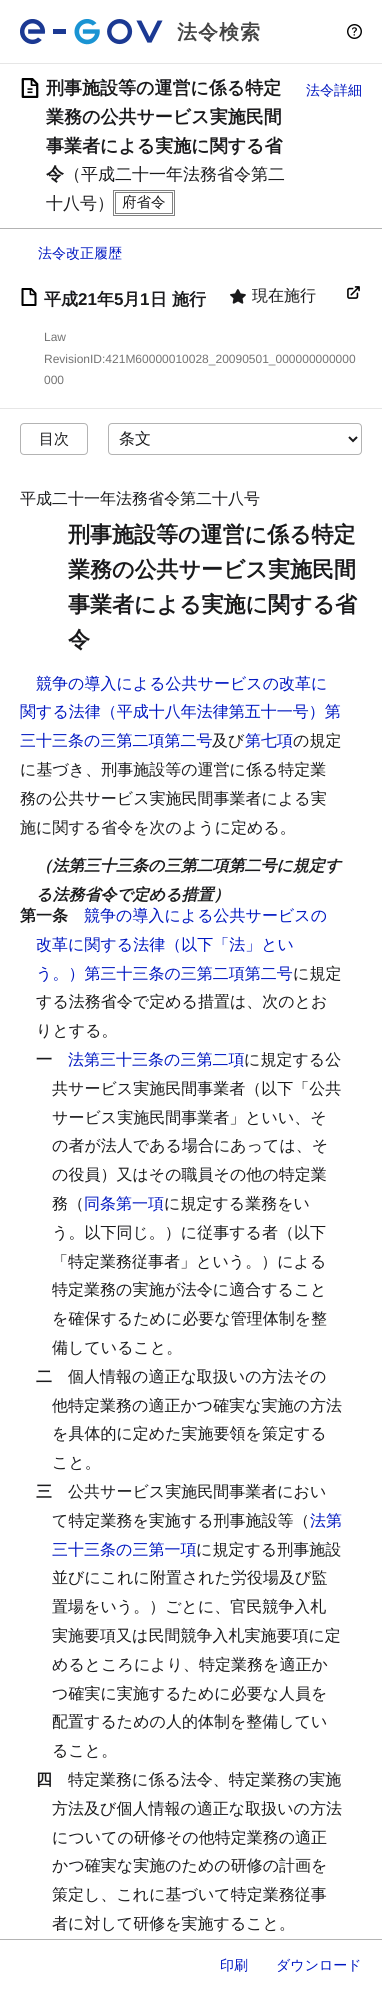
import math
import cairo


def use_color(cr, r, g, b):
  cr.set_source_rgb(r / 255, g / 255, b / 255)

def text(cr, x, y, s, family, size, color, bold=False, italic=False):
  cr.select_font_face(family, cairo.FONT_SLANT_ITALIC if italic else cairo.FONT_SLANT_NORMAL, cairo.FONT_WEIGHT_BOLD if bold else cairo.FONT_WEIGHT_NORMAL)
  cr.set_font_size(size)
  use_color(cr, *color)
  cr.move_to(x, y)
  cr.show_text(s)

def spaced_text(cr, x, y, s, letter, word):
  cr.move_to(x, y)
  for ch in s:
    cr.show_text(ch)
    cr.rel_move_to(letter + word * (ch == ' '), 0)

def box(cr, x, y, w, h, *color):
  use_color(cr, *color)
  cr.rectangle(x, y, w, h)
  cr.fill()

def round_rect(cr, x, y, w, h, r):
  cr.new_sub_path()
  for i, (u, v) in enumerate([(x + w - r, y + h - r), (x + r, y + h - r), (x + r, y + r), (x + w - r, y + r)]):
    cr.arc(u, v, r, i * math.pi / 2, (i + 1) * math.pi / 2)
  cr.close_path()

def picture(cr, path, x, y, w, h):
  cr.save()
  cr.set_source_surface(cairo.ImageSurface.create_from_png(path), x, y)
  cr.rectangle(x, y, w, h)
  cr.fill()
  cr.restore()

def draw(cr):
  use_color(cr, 255, 255, 255)
  cr.paint()
  box(cr, 0, 63, 382, 1, 230, 230, 230)
  picture(cr, "img_01.png", 20, 19, 143, 26)
  picture(cr, "img_02.png", 347, 24, 15, 15)
  box(cr, 0, 228, 382, 1, 179, 179, 179)
  picture(cr, "img_03.png", 21, 78, 18, 20)
  cr.rectangle(113.5, 190.5, 61, 25)
  use_color(cr, 128, 128, 128)
  cr.set_line_width(1)
  cr.stroke()
  cr.rectangle(115.5, 192.5, 57, 21)
  cr.stroke()
  box(cr, 0, 408, 382, 1, 230, 230, 230)
  picture(cr, "img_04.png", 21, 288, 16, 18)
  picture(cr, "img_05.png", 230, 289, 16, 15)
  picture(cr, "img_06.png", 347, 286, 13, 13)
  round_rect(cr, 20.5, 423.5, 67, 31, 3.5)
  use_color(cr, 179, 179, 179)
  cr.stroke()
  round_rect(cr, 108.5, 423.5, 253, 31, 3.5)
  cr.stroke()
  cr.new_path()
  cr.move_to(349, 437)
  cr.line_to(353, 441)
  cr.line_to(357, 437)
  use_color(cr, 26, 26, 28)
  cr.set_line_width(2)
  cr.stroke()
  box(cr, 0, 1939, 382, 1, 179, 179, 179)
  cr.select_font_face("WenQuanYi Zen Hei", cairo.FONT_SLANT_NORMAL, cairo.FONT_WEIGHT_BOLD)
  cr.set_font_size(20)
  use_color(cr, 68, 68, 68)
  spaced_text(cr, 177, 39, "法令検索", 1, 0)
  text(cr, 46, 94, "刑事施設等の運営に係る特定", "WenQuanYi Zen Hei", 18, (26, 26, 28), bold=True)
  text(cr, 46, 123, "業務の公共サービス実施民間", "WenQuanYi Zen Hei", 18, (26, 26, 28), bold=True)
  text(cr, 46, 152, "事業者による実施に関する省", "WenQuanYi Zen Hei", 18, (26, 26, 28), bold=True)
  text(cr, 46, 180, "令", "WenQuanYi Zen Hei", 18, (26, 26, 28), bold=True)
  text(cr, 64, 180, "（平成二十一年法務省令第二", "WenQuanYi Zen Hei Medium", 17, (26, 26, 28))
  text(cr, 46, 209, "十八号）", "WenQuanYi Zen Hei Medium", 17, (26, 26, 28))
  text(cr, 122, 207, "府省令", "WenQuanYi Zen Hei Medium", 14.5, (26, 26, 28))
  text(cr, 306, 95, "法令詳細", "WenQuanYi Zen Hei Medium", 14, (0, 23, 193))
  text(cr, 38, 258, "法令改正履歴", "WenQuanYi Zen Hei Medium", 14, (0, 23, 193))
  text(cr, 44, 305, "平成", "WenQuanYi Zen Hei", 17, (26, 26, 28), bold=True)
  text(cr, 78, 305, "21", "Liberation Sans", 17, (26, 26, 28), bold=True)
  text(cr, 97, 305, "年", "WenQuanYi Zen Hei", 17, (26, 26, 28), bold=True)
  text(cr, 114, 305, "5", "Liberation Sans", 17, (26, 26, 28), bold=True)
  text(cr, 123, 305, "月", "WenQuanYi Zen Hei", 17, (26, 26, 28), bold=True)
  text(cr, 140, 305, "1", "Liberation Sans", 17, (26, 26, 28), bold=True)
  text(cr, 150, 305, "日 施行", "WenQuanYi Zen Hei", 17, (26, 26, 28), bold=True)
  text(cr, 252, 301, "現在施行", "WenQuanYi Zen Hei Medium", 16, (26, 26, 28))
  text(cr, 44, 341, "Law", "Liberation Sans", 12, (115, 115, 115))
  text(cr, 44, 363, "RevisionID:421M60000010028_20090501_000000000000", "Liberation Sans", 12, (115, 115, 115))
  text(cr, 44, 384, "000", "Liberation Sans", 12, (115, 115, 115))
  text(cr, 39, 444, "目次", "WenQuanYi Zen Hei Medium", 15, (26, 26, 28))
  text(cr, 119, 444, "条文", "WenQuanYi Zen Hei Medium", 16, (26, 26, 28))
  text(cr, 20, 504, "平成二十一年法務省令第二十八号", "WenQuanYi Zen Hei Medium", 16, (26, 26, 28))
  text(cr, 68, 542, "刑事施設等の運営に係る特定", "WenQuanYi Zen Hei", 22, (26, 26, 28), bold=True)
  text(cr, 68, 577, "業務の公共サービス実施民間", "WenQuanYi Zen Hei", 22, (26, 26, 28), bold=True)
  text(cr, 68, 612, "事業者による実施に関する省", "WenQuanYi Zen Hei", 22, (26, 26, 28), bold=True)
  text(cr, 68, 647, "令", "WenQuanYi Zen Hei", 22, (26, 26, 28), bold=True)
  text(cr, 36, 689, "競争の導入による公共サービスの改革に", "WenQuanYi Zen Hei Medium", 16, (0, 23, 193))
  text(cr, 20, 717, "関する法律（平成十八年法律第五十一号）第", "WenQuanYi Zen Hei Medium", 16, (0, 23, 193))
  text(cr, 20, 746, "三十三条の三第二項第二号", "WenQuanYi Zen Hei Medium", 16, (0, 23, 193))
  text(cr, 212, 746, "及び", "WenQuanYi Zen Hei Medium", 16, (26, 26, 28))
  text(cr, 245, 746, "第七項", "WenQuanYi Zen Hei Medium", 16, (0, 23, 193))
  text(cr, 293, 746, "の規定", "WenQuanYi Zen Hei Medium", 16, (26, 26, 28))
  text(cr, 20, 775, "に基づき、刑事施設等の運営に係る特定業", "WenQuanYi Zen Hei Medium", 16, (26, 26, 28))
  text(cr, 20, 804, "務の公共サービス実施民間事業者による実", "WenQuanYi Zen Hei Medium", 16, (26, 26, 28))
  text(cr, 20, 833, "施に関する省令を次のように定める。", "WenQuanYi Zen Hei Medium", 16, (26, 26, 28))
  text(cr, 36, 871, "（法第三十三条の三第二項第二号に規定す", "WenQuanYi Zen Hei", 16, (26, 26, 28), bold=True, italic=True)
  text(cr, 36, 900, "る法務省令で定める措置）", "WenQuanYi Zen Hei", 16, (26, 26, 28), bold=True, italic=True)
  text(cr, 20, 921, "第一条", "WenQuanYi Zen Hei", 16, (26, 26, 28), bold=True)
  text(cr, 84, 921, "競争の導入による公共サービスの", "WenQuanYi Zen Hei Medium", 16, (0, 23, 193))
  text(cr, 36, 950, "改革に関する法律（以下「法」とい", "WenQuanYi Zen Hei Medium", 16, (0, 23, 193))
  text(cr, 36, 979, "う。）第三十三条の三第二項第二号", "WenQuanYi Zen Hei Medium", 16, (0, 23, 193))
  text(cr, 293, 979, "に規定", "WenQuanYi Zen Hei Medium", 16, (26, 26, 28))
  text(cr, 36, 1007, "する法務省令で定める措置は、次のとお", "WenQuanYi Zen Hei Medium", 16, (26, 26, 28))
  text(cr, 36, 1036, "りとする。", "WenQuanYi Zen Hei Medium", 16, (26, 26, 28))
  text(cr, 36, 1065, "一", "WenQuanYi Zen Hei", 16, (26, 26, 28), bold=True)
  text(cr, 68, 1065, "法第三十三条の三第二項", "WenQuanYi Zen Hei Medium", 16, (0, 23, 193))
  text(cr, 244, 1065, "に規定する公", "WenQuanYi Zen Hei Medium", 16, (26, 26, 28))
  text(cr, 52, 1094, "共サービス実施民間事業者（以下「公共", "WenQuanYi Zen Hei Medium", 16, (26, 26, 28))
  text(cr, 52, 1123, "サービス実施民間事業者」といい、そ", "WenQuanYi Zen Hei Medium", 16, (26, 26, 28))
  text(cr, 52, 1151, "の者が法人である場合にあっては、そ", "WenQuanYi Zen Hei Medium", 16, (26, 26, 28))
  text(cr, 52, 1180, "の役員）又はその職員その他の特定業", "WenQuanYi Zen Hei Medium", 16, (26, 26, 28))
  text(cr, 52, 1209, "務（", "WenQuanYi Zen Hei Medium", 16, (26, 26, 28))
  text(cr, 84, 1209, "同条第一項", "WenQuanYi Zen Hei Medium", 16, (0, 23, 193))
  text(cr, 164, 1209, "に規定する業務をい", "WenQuanYi Zen Hei Medium", 16, (26, 26, 28))
  text(cr, 52, 1238, "う。以下同じ。）に従事する者（以下", "WenQuanYi Zen Hei Medium", 16, (26, 26, 28))
  text(cr, 52, 1267, "「特定業務従事者」という。）による", "WenQuanYi Zen Hei Medium", 16, (26, 26, 28))
  text(cr, 52, 1295, "特定業務の実施が法令に適合すること", "WenQuanYi Zen Hei Medium", 16, (26, 26, 28))
  text(cr, 52, 1324, "を確保するために必要な管理体制を整", "WenQuanYi Zen Hei Medium", 16, (26, 26, 28))
  text(cr, 52, 1353, "備していること。", "WenQuanYi Zen Hei Medium", 16, (26, 26, 28))
  text(cr, 36, 1382, "二", "WenQuanYi Zen Hei", 16, (26, 26, 28), bold=True)
  text(cr, 68, 1382, "個人情報の適正な取扱いの方法その", "WenQuanYi Zen Hei Medium", 16, (26, 26, 28))
  text(cr, 52, 1411, "他特定業務の適正かつ確実な実施の方法", "WenQuanYi Zen Hei Medium", 16, (26, 26, 28))
  text(cr, 52, 1439, "を具体的に定めた実施要領を策定する", "WenQuanYi Zen Hei Medium", 16, (26, 26, 28))
  text(cr, 52, 1468, "こと。", "WenQuanYi Zen Hei Medium", 16, (26, 26, 28))
  text(cr, 36, 1497, "三", "WenQuanYi Zen Hei", 16, (26, 26, 28), bold=True)
  text(cr, 68, 1497, "公共サービス実施民間事業者におい", "WenQuanYi Zen Hei Medium", 16, (26, 26, 28))
  text(cr, 52, 1526, "て特定業務を実施する刑事施設等（", "WenQuanYi Zen Hei Medium", 16, (26, 26, 28))
  text(cr, 310, 1526, "法第", "WenQuanYi Zen Hei Medium", 16, (0, 23, 193))
  text(cr, 52, 1555, "三十三条の三第一項", "WenQuanYi Zen Hei Medium", 16, (0, 23, 193))
  text(cr, 196, 1555, "に規定する刑事施設", "WenQuanYi Zen Hei Medium", 16, (26, 26, 28))
  text(cr, 52, 1583, "並びにこれに附置された労役場及び監", "WenQuanYi Zen Hei Medium", 16, (26, 26, 28))
  text(cr, 52, 1612, "置場をいう。）ごとに、官民競争入札", "WenQuanYi Zen Hei Medium", 16, (26, 26, 28))
  text(cr, 52, 1641, "実施要項又は民間競争入札実施要項に定", "WenQuanYi Zen Hei Medium", 16, (26, 26, 28))
  text(cr, 52, 1670, "めるところにより、特定業務を適正か", "WenQuanYi Zen Hei Medium", 16, (26, 26, 28))
  text(cr, 52, 1699, "つ確実に実施するために必要な人員を", "WenQuanYi Zen Hei Medium", 16, (26, 26, 28))
  text(cr, 52, 1727, "配置するための人的体制を整備してい", "WenQuanYi Zen Hei Medium", 16, (26, 26, 28))
  text(cr, 52, 1756, "ること。", "WenQuanYi Zen Hei Medium", 16, (26, 26, 28))
  text(cr, 36, 1785, "四", "WenQuanYi Zen Hei", 16, (26, 26, 28), bold=True)
  text(cr, 68, 1785, "特定業務に係る法令、特定業務の実施", "WenQuanYi Zen Hei Medium", 16, (26, 26, 28))
  text(cr, 52, 1814, "方法及び個人情報の適正な取扱いの方法", "WenQuanYi Zen Hei Medium", 16, (26, 26, 28))
  text(cr, 52, 1843, "についての研修その他特定業務の適正", "WenQuanYi Zen Hei Medium", 16, (26, 26, 28))
  text(cr, 52, 1871, "かつ確実な実施のための研修の計画を", "WenQuanYi Zen Hei Medium", 16, (26, 26, 28))
  text(cr, 52, 1900, "策定し、これに基づいて特定業務従事", "WenQuanYi Zen Hei Medium", 16, (26, 26, 28))
  text(cr, 52, 1929, "者に対して研修を実施すること。", "WenQuanYi Zen Hei Medium", 16, (26, 26, 28))
  text(cr, 220, 1970, "印刷", "WenQuanYi Zen Hei Medium", 14, (0, 23, 193))
  text(cr, 276, 1970, "ダウンロード", "WenQuanYi Zen Hei Medium", 14, (0, 23, 193))


surface = cairo.ImageSurface(cairo.FORMAT_RGB24, 382, 1992)
cr = cairo.Context(surface)
options = cairo.FontOptions()
options.set_hint_metrics(cairo.HINT_METRICS_OFF)
options.set_hint_style(cairo.HINT_STYLE_NONE)
cr.set_font_options(options)
cr.set_miter_limit(4)
draw(cr)
surface.write_to_png("out.png")
